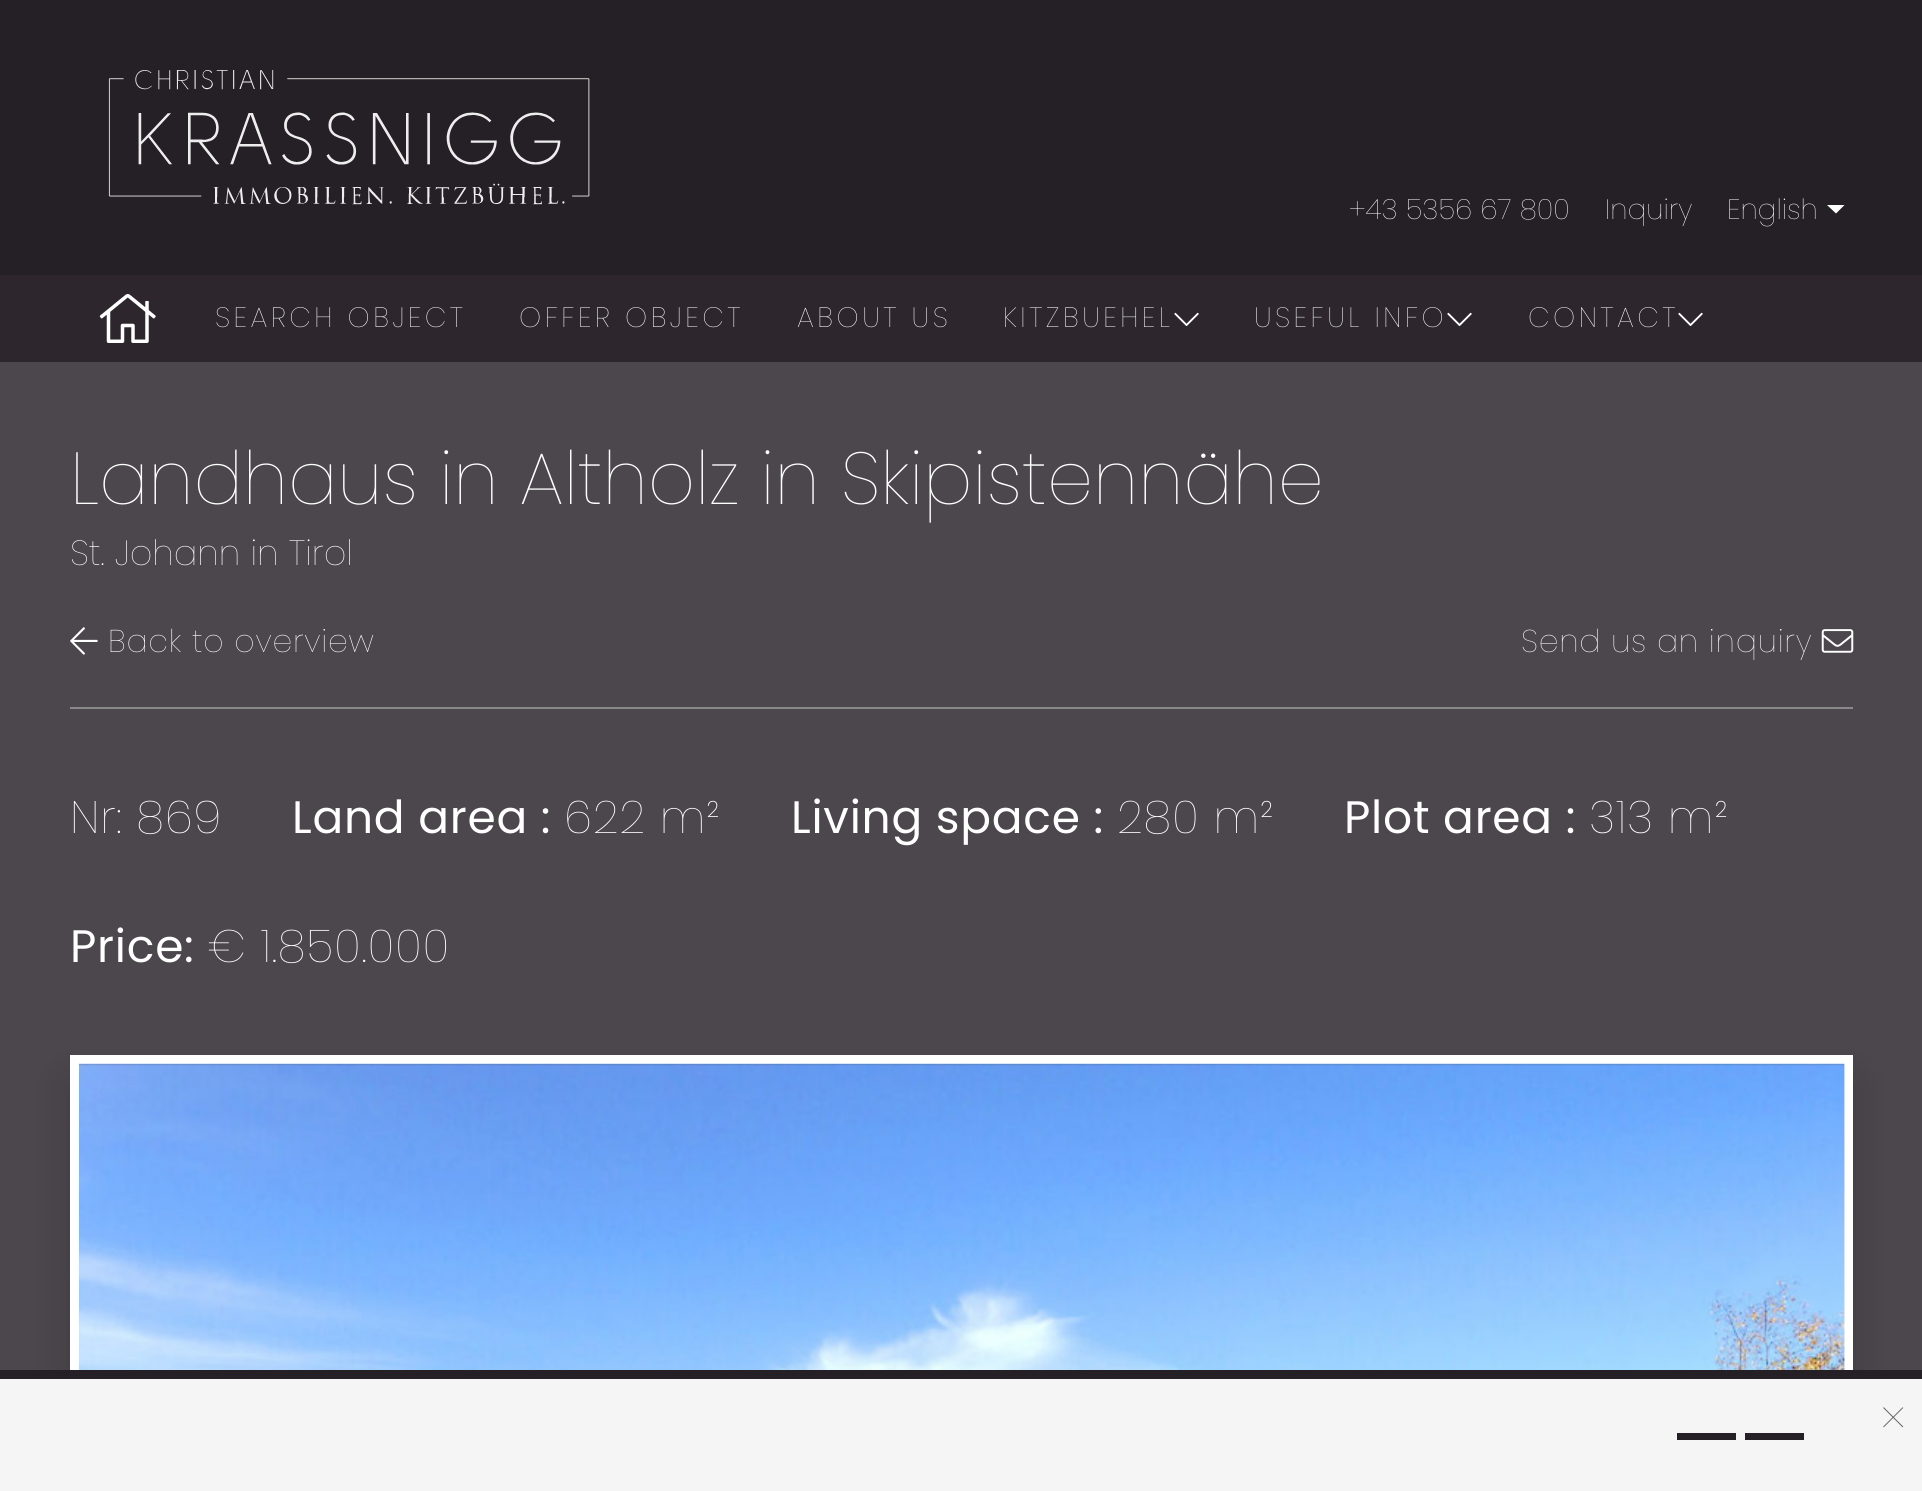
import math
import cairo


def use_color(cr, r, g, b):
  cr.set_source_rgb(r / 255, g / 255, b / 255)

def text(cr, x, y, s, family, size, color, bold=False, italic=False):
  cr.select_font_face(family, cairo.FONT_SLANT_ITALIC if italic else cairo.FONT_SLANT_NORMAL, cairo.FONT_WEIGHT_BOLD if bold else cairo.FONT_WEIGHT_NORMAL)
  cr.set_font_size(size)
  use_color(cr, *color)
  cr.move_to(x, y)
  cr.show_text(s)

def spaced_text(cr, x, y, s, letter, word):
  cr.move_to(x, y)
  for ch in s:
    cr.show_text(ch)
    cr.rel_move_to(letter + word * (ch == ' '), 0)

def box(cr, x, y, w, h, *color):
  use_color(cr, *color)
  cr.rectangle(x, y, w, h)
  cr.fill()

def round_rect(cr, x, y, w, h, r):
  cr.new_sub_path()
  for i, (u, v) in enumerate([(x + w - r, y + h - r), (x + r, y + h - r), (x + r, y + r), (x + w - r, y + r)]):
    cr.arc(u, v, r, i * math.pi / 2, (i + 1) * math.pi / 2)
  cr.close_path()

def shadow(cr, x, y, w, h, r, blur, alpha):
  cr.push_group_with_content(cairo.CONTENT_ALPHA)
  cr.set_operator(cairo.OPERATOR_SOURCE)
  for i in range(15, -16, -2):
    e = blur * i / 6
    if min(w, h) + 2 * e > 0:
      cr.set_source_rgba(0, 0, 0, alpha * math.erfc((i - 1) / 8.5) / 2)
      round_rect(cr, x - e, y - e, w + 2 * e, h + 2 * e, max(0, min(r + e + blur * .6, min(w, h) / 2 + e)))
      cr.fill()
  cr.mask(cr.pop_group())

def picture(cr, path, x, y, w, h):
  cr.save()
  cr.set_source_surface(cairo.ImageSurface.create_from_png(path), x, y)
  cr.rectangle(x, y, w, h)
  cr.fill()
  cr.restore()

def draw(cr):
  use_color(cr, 76, 71, 76)
  cr.paint()
  box(cr, 0, 0, 1922, 275, 37, 32, 37)
  picture(cr, "img_01.png", 108, 70, 482, 135)
  use_color(cr, 255, 255, 255)
  cr.new_path()
  cr.move_to(1827, 205)
  cr.line_to(1844.5, 205)
  cr.line_to(1836, 213.5)
  cr.close_path()
  cr.fill()
  box(cr, 0, 275, 1922, 87, 45, 39, 45)
  picture(cr, "img_02.png", 99, 294, 57, 49)
  picture(cr, "img_03.png", 1174, 312, 25, 14)
  picture(cr, "img_03.png", 1447, 312, 25, 14)
  picture(cr, "img_03.png", 1678, 312, 25, 14)
  box(cr, 70, 707, 1783, 2, 136, 136, 136)
  picture(cr, "img_04.png", 70, 627, 28, 28)
  picture(cr, "img_05.png", 1821, 629, 33, 24)
  use_color(cr, 0, 0, 0)
  shadow(cr, 70, 1080, 1783, 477, 0, 22, 0.16)
  cr.rectangle(74.5, 1059.5, 1774, 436)
  use_color(cr, 255, 255, 255)
  cr.set_line_width(9)
  cr.stroke()
  picture(cr, "img_06.png", 79, 1063, 1766, 307)
  box(cr, 0, 1379, 1922, 112, 245, 245, 245)
  box(cr, 0, 1370, 1922, 9, 37, 32, 37)
  box(cr, 1677, 1433, 59, 7, 37, 32, 37)
  box(cr, 1745, 1433, 59, 7, 37, 32, 37)
  text(cr, 1349, 219, "+43 5356 67 800", "Poppins ExtraLight", 28, (255, 255, 255))
  text(cr, 1605, 219, "Inquiry", "Poppins ExtraLight", 28, (255, 255, 255))
  text(cr, 1727, 219, "English", "Poppins ExtraLight", 28, (255, 255, 255))
  spaced_text(cr, 215, 327, "SEARCH OBJECT", 3.5, 0)
  spaced_text(cr, 519, 327, "OFFER OBJECT", 3.5, 0)
  spaced_text(cr, 797, 327, "ABOUT US", 3.5, 0)
  spaced_text(cr, 1003, 327, "KITZBUEHEL", 3.5, 0)
  spaced_text(cr, 1254, 327, "USEFUL INFO", 3.5, 0)
  spaced_text(cr, 1528, 327, "CONTACT", 3.5, 0)
  text(cr, 70, 504, "Landhaus in Altholz in Skipistennähe", "Poppins ExtraLight", 73.5, (255, 255, 255))
  text(cr, 70, 565, "St. Johann in Tirol", "Poppins ExtraLight", 35, (255, 255, 255))
  cr.set_font_size(31.5)
  spaced_text(cr, 108, 652, "Back to overview", 0.75, 0)
  spaced_text(cr, 1521, 652, "Send us an inquiry", 0.75, 0)
  cr.set_font_size(45.5)
  spaced_text(cr, 70, 833, "Nr: 869", 0.75, 0)
  cr.select_font_face("Poppins")
  spaced_text(cr, 292, 833, "Land area :", 0.75, 0)
  cr.select_font_face("Poppins ExtraLight")
  spaced_text(cr, 564, 833, "622 m²", 0.75, 0)
  cr.select_font_face("Poppins")
  spaced_text(cr, 791, 833, "Living space :", 0.75, 0)
  cr.select_font_face("Poppins ExtraLight")
  spaced_text(cr, 1117, 833, "280 m²", 0.75, 0)
  cr.select_font_face("Poppins")
  spaced_text(cr, 1344, 833, "Plot area :", 0.75, 0)
  cr.select_font_face("Poppins ExtraLight")
  spaced_text(cr, 1589, 833, "313 m²", 0.75, 0)
  cr.select_font_face("Poppins")
  spaced_text(cr, 70, 962, "Price:", 0.75, 0)
  cr.select_font_face("Poppins ExtraLight")
  spaced_text(cr, 208, 962, "€ 1.850.000", 0.75, 0)
  text(cr, 1881, 1437, "×", "Poppins ExtraLight", 52, (102, 102, 102))


surface = cairo.ImageSurface(cairo.FORMAT_RGB24, 1922, 1491)
cr = cairo.Context(surface)
options = cairo.FontOptions()
options.set_hint_metrics(cairo.HINT_METRICS_OFF)
options.set_hint_style(cairo.HINT_STYLE_NONE)
cr.set_font_options(options)
cr.set_miter_limit(4)
draw(cr)
surface.write_to_png("out.png")
